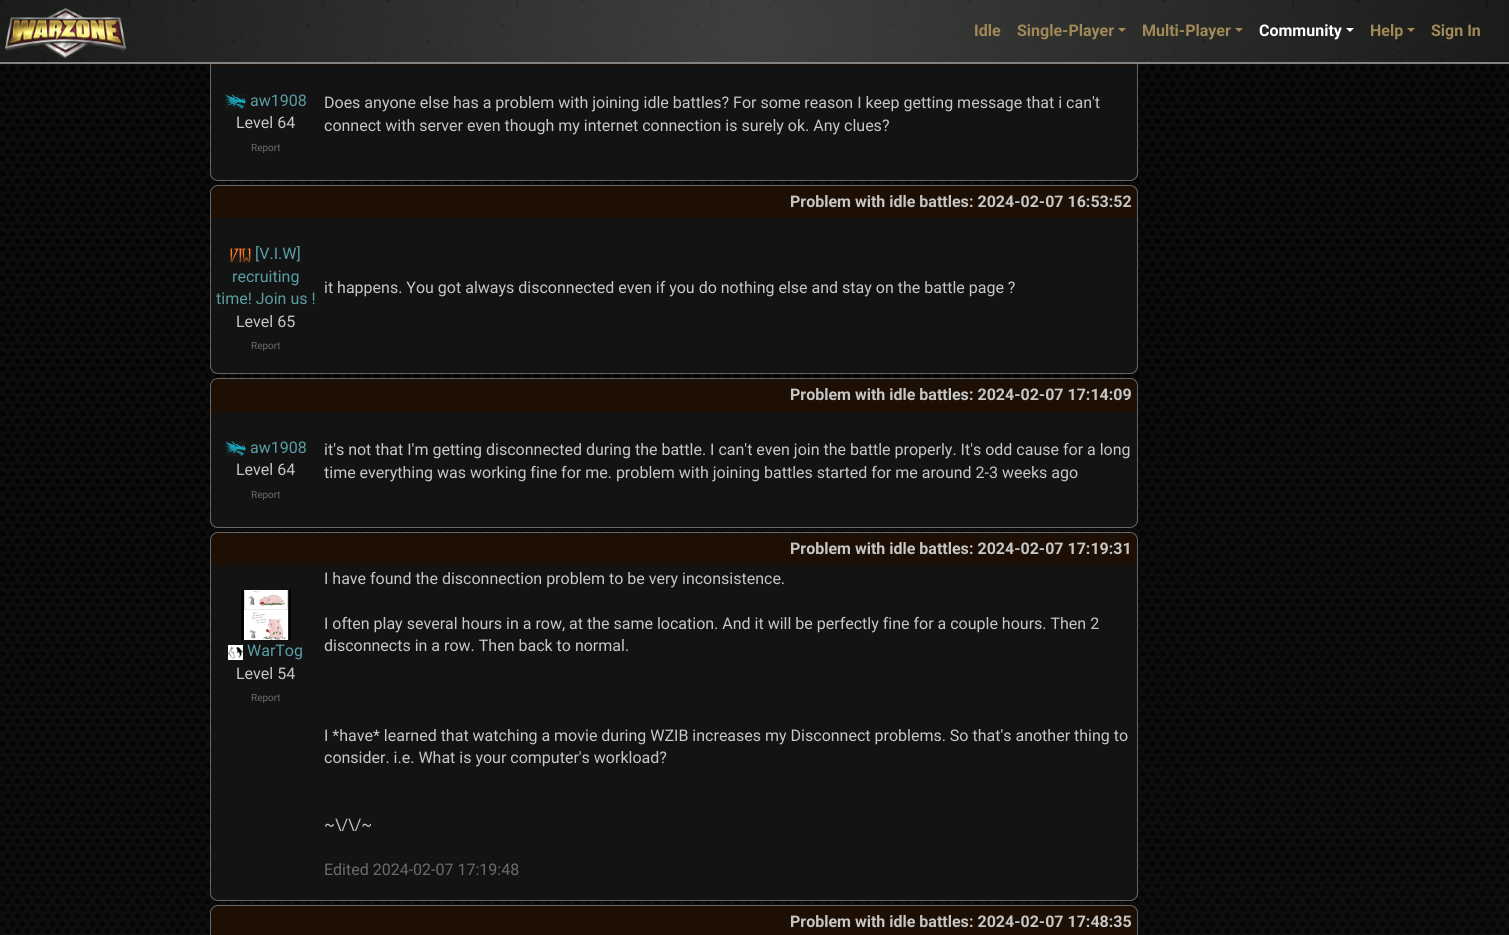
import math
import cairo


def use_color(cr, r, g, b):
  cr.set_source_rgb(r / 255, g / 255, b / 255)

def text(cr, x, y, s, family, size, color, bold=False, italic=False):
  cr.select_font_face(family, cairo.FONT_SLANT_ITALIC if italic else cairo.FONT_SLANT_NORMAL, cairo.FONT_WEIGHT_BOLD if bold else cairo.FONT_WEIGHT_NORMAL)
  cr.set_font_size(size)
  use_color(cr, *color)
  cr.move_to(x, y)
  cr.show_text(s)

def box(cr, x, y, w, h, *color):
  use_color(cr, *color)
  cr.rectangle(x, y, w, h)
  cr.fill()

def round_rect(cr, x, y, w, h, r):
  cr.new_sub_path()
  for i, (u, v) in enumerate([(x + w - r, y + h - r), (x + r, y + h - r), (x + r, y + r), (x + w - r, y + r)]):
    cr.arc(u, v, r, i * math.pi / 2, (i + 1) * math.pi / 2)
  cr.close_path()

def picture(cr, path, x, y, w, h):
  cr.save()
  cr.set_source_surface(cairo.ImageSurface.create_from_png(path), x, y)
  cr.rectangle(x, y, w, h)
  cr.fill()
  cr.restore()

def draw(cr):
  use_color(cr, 255, 255, 255)
  cr.paint()
  picture(cr, "img_01.png", 0, 64, 1509, 871)
  use_color(cr, 19, 19, 19)
  round_rect(cr, 210.5, 31.5, 927, 149, 7.5)
  cr.fill_preserve()
  use_color(cr, 102, 102, 102)
  cr.set_line_width(1)
  cr.stroke()
  picture(cr, "img_02.png", 0, 0, 1509, 62)
  box(cr, 0, 62, 1509, 2, 131, 130, 130)
  picture(cr, "img_03.png", 5, 8, 121, 51)
  use_color(cr, 162, 137, 88)
  cr.new_path()
  cr.move_to(1118, 28)
  cr.line_to(1126, 28)
  cr.line_to(1122, 32)
  cr.close_path()
  cr.fill()
  cr.new_path()
  cr.move_to(1235, 28)
  cr.line_to(1243, 28)
  cr.line_to(1239, 32)
  cr.close_path()
  cr.fill()
  use_color(cr, 255, 255, 255)
  cr.new_path()
  cr.move_to(1346, 28)
  cr.line_to(1354, 28)
  cr.line_to(1350, 32)
  cr.close_path()
  cr.fill()
  use_color(cr, 162, 137, 88)
  cr.new_path()
  cr.move_to(1407, 28)
  cr.line_to(1415, 28)
  cr.line_to(1411, 32)
  cr.close_path()
  cr.fill()
  box(cr, 211, 64, 926, 1, 29, 15, 4)
  picture(cr, "img_04.png", 225, 94, 21, 15)
  use_color(cr, 19, 19, 19)
  round_rect(cr, 210.5, 185.5, 927, 188, 7.5)
  cr.fill_preserve()
  use_color(cr, 102, 102, 102)
  cr.stroke()
  use_color(cr, 29, 15, 4)
  cr.new_path()
  cr.move_to(219, 186)
  cr.line_to(1129, 186)
  cr.curve_to(1133.5, 186, 1137, 189.5, 1137, 194)
  cr.line_to(1137, 218)
  cr.line_to(211, 218)
  cr.line_to(211, 194)
  cr.curve_to(211, 189.5, 214.5, 186, 219, 186)
  cr.close_path()
  cr.fill()
  picture(cr, "img_05.png", 230, 248, 21, 15)
  use_color(cr, 19, 19, 19)
  round_rect(cr, 210.5, 378.5, 927, 149, 7.5)
  cr.fill_preserve()
  use_color(cr, 102, 102, 102)
  cr.stroke()
  use_color(cr, 29, 15, 4)
  cr.new_path()
  cr.move_to(219, 379)
  cr.line_to(1129, 379)
  cr.curve_to(1133.5, 379, 1137, 382.5, 1137, 387)
  cr.line_to(1137, 412)
  cr.line_to(211, 412)
  cr.line_to(211, 387)
  cr.curve_to(211, 382.5, 214.5, 379, 219, 379)
  cr.close_path()
  cr.fill()
  picture(cr, "img_04.png", 225, 441, 21, 15)
  use_color(cr, 19, 19, 19)
  round_rect(cr, 210.5, 532.5, 927, 368, 7.5)
  cr.fill_preserve()
  use_color(cr, 102, 102, 102)
  cr.stroke()
  use_color(cr, 29, 15, 4)
  cr.new_path()
  cr.move_to(219, 533)
  cr.line_to(1129, 533)
  cr.curve_to(1133.5, 533, 1137, 536.5, 1137, 541)
  cr.line_to(1137, 565)
  cr.line_to(211, 565)
  cr.line_to(211, 541)
  cr.curve_to(211, 536.5, 214.5, 533, 219, 533)
  cr.close_path()
  cr.fill()
  picture(cr, "img_06.png", 241, 590, 50, 50)
  picture(cr, "img_07.png", 228, 645, 15, 15)
  use_color(cr, 19, 19, 19)
  round_rect(cr, 210.5, 905.5, 927, 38, 7.5)
  cr.fill_preserve()
  use_color(cr, 102, 102, 102)
  cr.stroke()
  use_color(cr, 29, 15, 4)
  cr.new_path()
  cr.move_to(219, 906)
  cr.line_to(1129, 906)
  cr.curve_to(1133.5, 906, 1137, 909.5, 1137, 914)
  cr.line_to(1137, 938)
  cr.line_to(211, 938)
  cr.line_to(211, 914)
  cr.curve_to(211, 909.5, 214.5, 906, 219, 906)
  cr.close_path()
  cr.fill()
  text(cr, 974, 36, "Idle", "Roboto", 16, (162, 137, 88), bold=True)
  text(cr, 1017, 36, "Single-Player", "Roboto", 16, (162, 137, 88), bold=True)
  text(cr, 1142, 36, "Multi-Player", "Roboto", 16, (162, 137, 88), bold=True)
  text(cr, 1259, 36, "Community", "Roboto", 16, (255, 255, 255), bold=True)
  text(cr, 1370, 36, "Help", "Roboto", 16, (162, 137, 88), bold=True)
  text(cr, 1431, 36, "Sign In", "Roboto", 16, (162, 137, 88), bold=True)
  text(cr, 250, 106, "aw1908", "Roboto", 16, (90, 157, 165))
  text(cr, 236, 128, "Level 64", "Roboto", 16, (199, 199, 199))
  text(cr, 251, 151, "Report", "Roboto", 10, (107, 107, 106))
  text(cr, 324, 108, "Does anyone else has a problem with joining idle battles? For some reason I keep getting message that i can't", "Roboto", 16, (199, 199, 199))
  text(cr, 324, 131, "connect with server even though my internet connection is surely ok. Any clues?", "Roboto", 16, (199, 199, 199))
  text(cr, 790, 207, "Problem with idle battles", "Roboto", 16, (199, 199, 199), bold=True)
  text(cr, 969, 207, ": 2024-02-07 16:53:52", "Roboto", 16, (199, 199, 199), bold=True)
  text(cr, 255, 259, "[V.I.W]", "Roboto", 16, (90, 157, 165))
  text(cr, 232, 282, "recruiting", "Roboto", 16, (90, 157, 165))
  text(cr, 216, 304, "time! Join us !", "Roboto", 16, (90, 157, 165))
  text(cr, 236, 327, "Level 65", "Roboto", 16, (199, 199, 199))
  text(cr, 251, 349, "Report", "Roboto", 10, (107, 107, 106))
  text(cr, 324, 293, "it happens. You got always disconnected even if you do nothing else and stay on the battle page ?", "Roboto", 16, (199, 199, 199))
  text(cr, 790, 400, "Problem with idle battles", "Roboto", 16, (199, 199, 199), bold=True)
  text(cr, 969, 400, ": 2024-02-07 17:14:09", "Roboto", 16, (199, 199, 199), bold=True)
  text(cr, 250, 453, "aw1908", "Roboto", 16, (90, 157, 165))
  text(cr, 236, 475, "Level 64", "Roboto", 16, (199, 199, 199))
  text(cr, 251, 498, "Report", "Roboto", 10, (107, 107, 106))
  text(cr, 324, 455, "it's not that I'm getting disconnected during the battle. I can't even join the battle properly. It's odd cause for a long", "Roboto", 16, (199, 199, 199))
  text(cr, 324, 478, "time everything was working fine for me. problem with joining battles started for me around 2-3 weeks ago", "Roboto", 16, (199, 199, 199))
  text(cr, 790, 554, "Problem with idle battles", "Roboto", 16, (199, 199, 199), bold=True)
  text(cr, 969, 554, ": 2024-02-07 17:19:31", "Roboto", 16, (199, 199, 199), bold=True)
  text(cr, 247, 656, "WarTog", "Roboto", 16, (90, 157, 165))
  text(cr, 236, 679, "Level 54", "Roboto", 16, (199, 199, 199))
  text(cr, 251, 701, "Report", "Roboto", 10, (107, 107, 106))
  text(cr, 324, 584, "I have found the disconnection problem to be very inconsistence.", "Roboto", 16, (199, 199, 199))
  text(cr, 324, 629, "I often play several hours in a row, at the same location. And it will be perfectly fine for a couple hours. Then 2", "Roboto", 16, (199, 199, 199))
  text(cr, 324, 651, "disconnects in a row. Then back to normal.", "Roboto", 16, (199, 199, 199))
  text(cr, 324, 741, "I *have* learned that watching a movie during WZIB increases my Disconnect problems. So that's another thing to", "Roboto", 16, (199, 199, 199))
  text(cr, 324, 763, "consider. i.e. What is your computer's workload?", "Roboto", 16, (199, 199, 199))
  text(cr, 324, 830, "~\\/\\/~", "Roboto", 16, (199, 199, 199))
  text(cr, 324, 875, "Edited 2024-02-07 17:19:48", "Roboto", 16, (107, 107, 106))
  text(cr, 790, 927, "Problem with idle battles", "Roboto", 16, (199, 199, 199), bold=True)
  text(cr, 969, 927, ": 2024-02-07 17:48:35", "Roboto", 16, (199, 199, 199), bold=True)


surface = cairo.ImageSurface(cairo.FORMAT_RGB24, 1509, 935)
cr = cairo.Context(surface)
options = cairo.FontOptions()
options.set_hint_metrics(cairo.HINT_METRICS_OFF)
options.set_hint_style(cairo.HINT_STYLE_NONE)
cr.set_font_options(options)
cr.set_miter_limit(4)
draw(cr)
surface.write_to_png("out.png")
